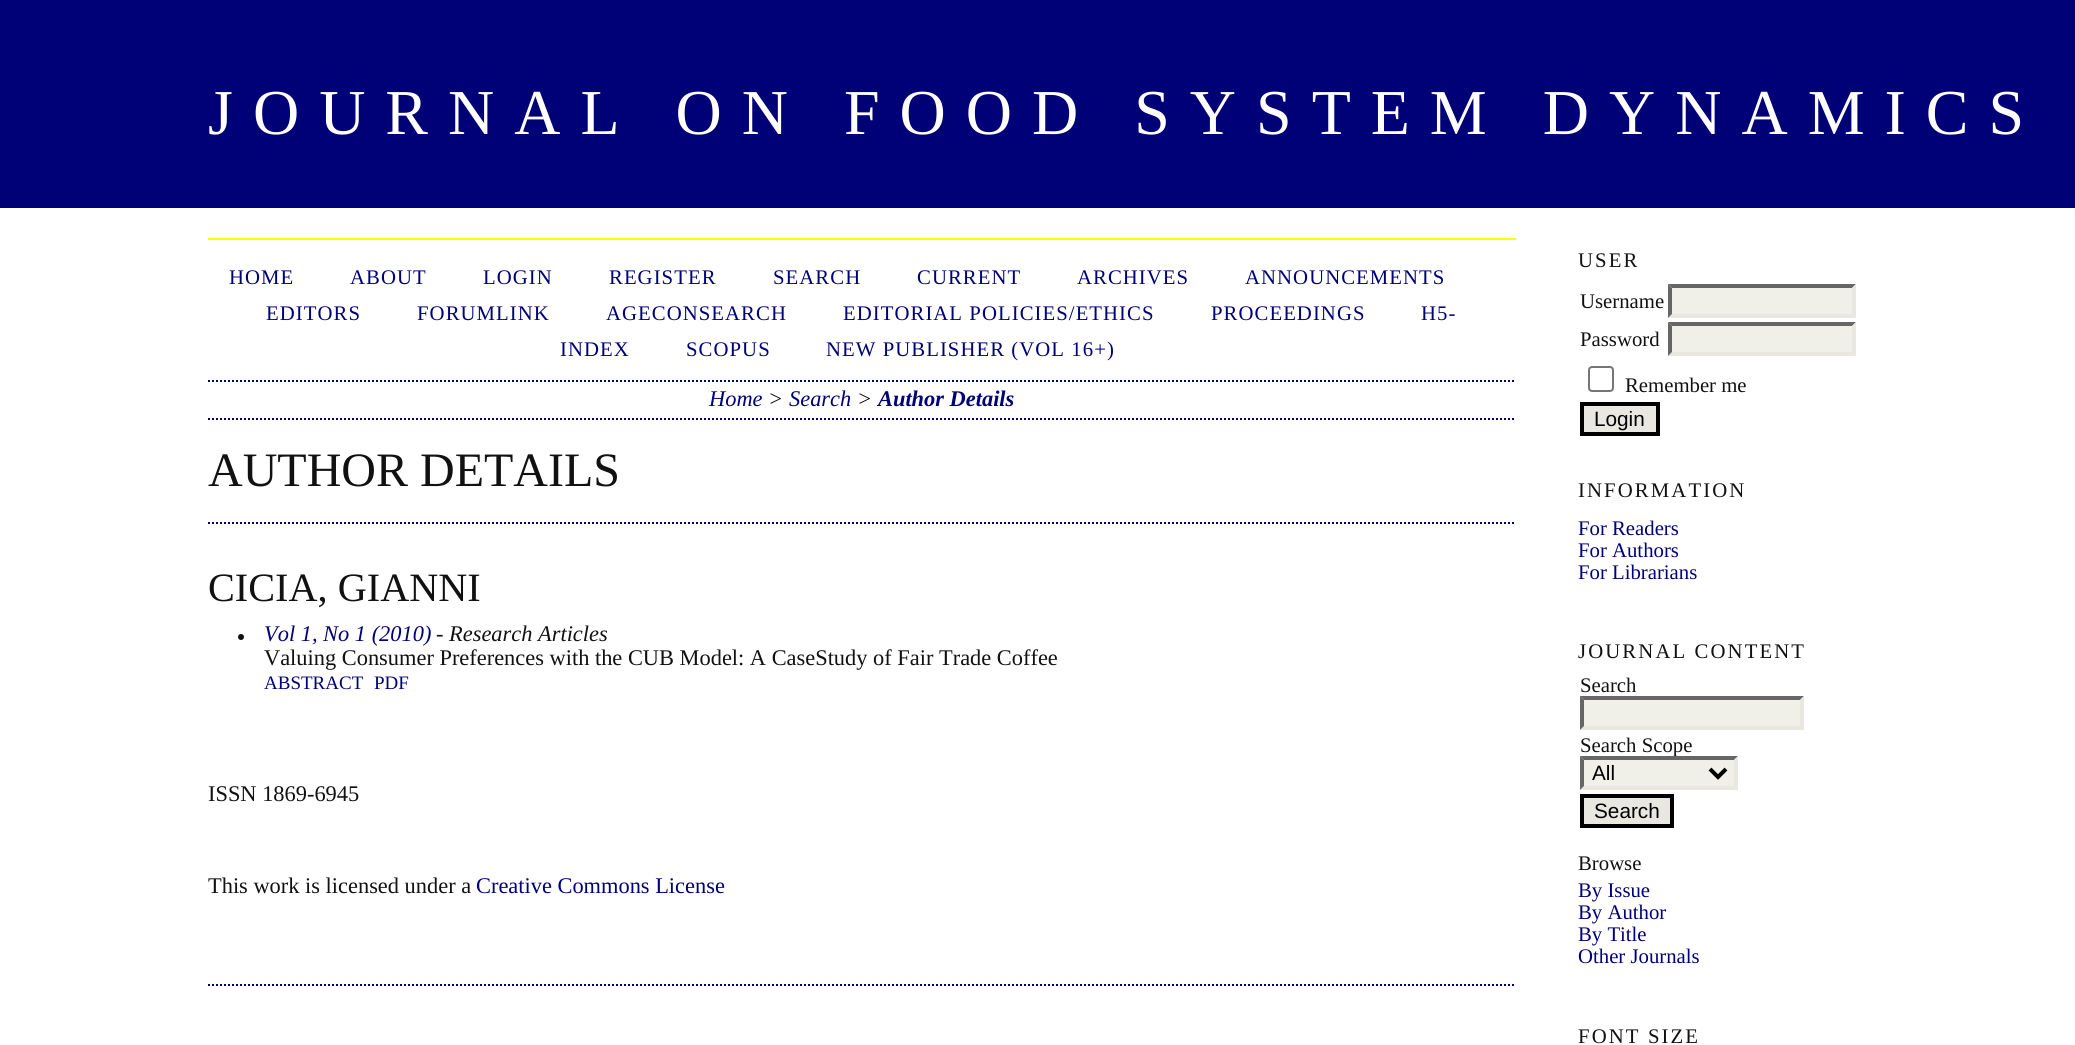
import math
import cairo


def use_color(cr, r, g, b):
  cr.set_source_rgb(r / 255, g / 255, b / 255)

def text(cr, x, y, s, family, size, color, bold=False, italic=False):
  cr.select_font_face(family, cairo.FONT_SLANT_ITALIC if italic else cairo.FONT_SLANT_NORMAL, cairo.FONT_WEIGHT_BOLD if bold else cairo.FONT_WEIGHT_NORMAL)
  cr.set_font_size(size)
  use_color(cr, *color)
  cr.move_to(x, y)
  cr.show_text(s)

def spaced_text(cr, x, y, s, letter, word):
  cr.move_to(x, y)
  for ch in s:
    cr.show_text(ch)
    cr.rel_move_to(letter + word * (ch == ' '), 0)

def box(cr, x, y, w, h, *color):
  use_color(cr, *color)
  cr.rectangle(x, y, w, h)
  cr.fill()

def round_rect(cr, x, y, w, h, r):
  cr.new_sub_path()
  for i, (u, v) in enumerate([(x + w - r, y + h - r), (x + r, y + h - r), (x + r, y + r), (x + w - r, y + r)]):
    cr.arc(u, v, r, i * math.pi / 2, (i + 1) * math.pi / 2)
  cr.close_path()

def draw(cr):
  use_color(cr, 255, 255, 255)
  cr.paint()
  box(cr, 0, 0, 2075, 208, 0, 0, 119)
  box(cr, 208, 238, 1308, 2, 255, 255, 0)
  cr.new_path()
  cr.move_to(208, 985)
  cr.line_to(1516, 985)
  use_color(cr, 0, 0, 119)
  cr.set_dash([2, 2])
  cr.stroke()
  cr.new_path()
  cr.move_to(208, 381)
  cr.line_to(1516, 381)
  cr.stroke()
  cr.new_path()
  cr.move_to(208, 419)
  cr.line_to(1516, 419)
  cr.stroke()
  cr.new_path()
  cr.move_to(208, 523)
  cr.line_to(1516, 523)
  cr.stroke()
  use_color(cr, 17, 17, 17)
  cr.arc(241, 637, 3, 0, 2 * math.pi)
  cr.fill()
  box(cr, 1668, 284, 188, 34, 240, 240, 232)
  use_color(cr, 102, 102, 102)
  cr.new_path()
  cr.move_to(1668, 284)
  cr.line_to(1856, 284)
  cr.line_to(1852, 288)
  cr.line_to(1672, 288)
  cr.close_path()
  cr.fill()
  use_color(cr, 232, 232, 225)
  cr.new_path()
  cr.move_to(1856, 284)
  cr.line_to(1856, 318)
  cr.line_to(1852, 314)
  cr.line_to(1852, 288)
  cr.close_path()
  cr.fill()
  cr.new_path()
  cr.move_to(1856, 318)
  cr.line_to(1668, 318)
  cr.line_to(1672, 314)
  cr.line_to(1852, 314)
  cr.close_path()
  cr.fill()
  use_color(cr, 102, 102, 102)
  cr.new_path()
  cr.move_to(1668, 318)
  cr.line_to(1668, 284)
  cr.line_to(1672, 288)
  cr.line_to(1672, 314)
  cr.close_path()
  cr.fill()
  box(cr, 1668, 322, 188, 34, 240, 240, 232)
  use_color(cr, 102, 102, 102)
  cr.new_path()
  cr.move_to(1668, 322)
  cr.line_to(1856, 322)
  cr.line_to(1852, 326)
  cr.line_to(1672, 326)
  cr.close_path()
  cr.fill()
  use_color(cr, 232, 232, 225)
  cr.new_path()
  cr.move_to(1856, 322)
  cr.line_to(1856, 356)
  cr.line_to(1852, 352)
  cr.line_to(1852, 326)
  cr.close_path()
  cr.fill()
  cr.new_path()
  cr.move_to(1856, 356)
  cr.line_to(1668, 356)
  cr.line_to(1672, 352)
  cr.line_to(1852, 352)
  cr.close_path()
  cr.fill()
  use_color(cr, 102, 102, 102)
  cr.new_path()
  cr.move_to(1668, 356)
  cr.line_to(1668, 322)
  cr.line_to(1672, 326)
  cr.line_to(1672, 352)
  cr.close_path()
  cr.fill()
  round_rect(cr, 1589, 367, 24, 24, 3)
  use_color(cr, 118, 118, 118)
  cr.set_dash([])
  cr.stroke()
  use_color(cr, 232, 232, 225)
  cr.rectangle(1582, 404, 76, 30)
  cr.fill_preserve()
  use_color(cr, 0, 0, 0)
  cr.set_line_width(4)
  cr.stroke()
  box(cr, 1580, 696, 224, 34, 240, 240, 232)
  use_color(cr, 102, 102, 102)
  cr.new_path()
  cr.move_to(1580, 696)
  cr.line_to(1804, 696)
  cr.line_to(1800, 700)
  cr.line_to(1584, 700)
  cr.close_path()
  cr.fill()
  use_color(cr, 232, 232, 225)
  cr.new_path()
  cr.move_to(1804, 696)
  cr.line_to(1804, 730)
  cr.line_to(1800, 726)
  cr.line_to(1800, 700)
  cr.close_path()
  cr.fill()
  cr.new_path()
  cr.move_to(1804, 730)
  cr.line_to(1580, 730)
  cr.line_to(1584, 726)
  cr.line_to(1800, 726)
  cr.close_path()
  cr.fill()
  use_color(cr, 102, 102, 102)
  cr.new_path()
  cr.move_to(1580, 730)
  cr.line_to(1580, 696)
  cr.line_to(1584, 700)
  cr.line_to(1584, 726)
  cr.close_path()
  cr.fill()
  use_color(cr, 232, 232, 225)
  cr.rectangle(1582, 796, 90, 30)
  cr.fill_preserve()
  use_color(cr, 0, 0, 0)
  cr.stroke()
  cr.select_font_face("Liberation Serif")
  cr.set_font_size(64)
  use_color(cr, 255, 255, 255)
  spaced_text(cr, 208, 134, "JOURNAL ON FOOD SYSTEM DYNAMICS", 20, 0)
  cr.set_font_size(20.75)
  use_color(cr, 0, 0, 119)
  spaced_text(cr, 229, 284, "HOME", 1.05, 0)
  spaced_text(cr, 350, 284, "ABOUT", 1.05, 0)
  spaced_text(cr, 483, 284, "LOGIN", 1.05, 0)
  spaced_text(cr, 609, 284, "REGISTER", 1.05, 0)
  spaced_text(cr, 773, 284, "SEARCH", 1.05, 0)
  spaced_text(cr, 917, 284, "CURRENT", 1.05, 0)
  spaced_text(cr, 1077, 284, "ARCHIVES", 1.05, 0)
  spaced_text(cr, 1245, 284, "ANNOUNCEMENTS", 1.05, 0)
  spaced_text(cr, 266, 320, "EDITORS", 1.05, 0)
  spaced_text(cr, 417, 320, "FORUMLINK", 1.05, 0)
  spaced_text(cr, 606, 320, "AGECONSEARCH", 1.05, 0)
  spaced_text(cr, 843, 320, "EDITORIAL POLICIES/ETHICS", 1.05, 0)
  spaced_text(cr, 1211, 320, "PROCEEDINGS", 1.05, 0)
  spaced_text(cr, 1421, 320, "H5-", 1.05, 0)
  spaced_text(cr, 560, 356, "INDEX", 1.05, 0)
  spaced_text(cr, 686, 356, "SCOPUS", 1.05, 0)
  spaced_text(cr, 826, 356, "NEW PUBLISHER (VOL 16+)", 1.05, 0)
  text(cr, 709, 406, "Home", "Liberation Serif", 22.4, (0, 0, 119), italic=True)
  text(cr, 768, 406, ">", "Liberation Serif", 22.4, (17, 17, 17), italic=True)
  text(cr, 789, 406, "Search", "Liberation Serif", 22.4, (0, 0, 119), italic=True)
  text(cr, 857, 406, ">", "Liberation Serif", 22.4, (17, 17, 17), italic=True)
  text(cr, 878, 406, "Author Details", "Liberation Serif", 22.4, (0, 0, 119), bold=True, italic=True)
  text(cr, 208, 486, "AUTHOR DETAILS", "Liberation Serif", 48, (17, 17, 17))
  text(cr, 208, 601, "CICIA, GIANNI", "Liberation Serif", 40.25, (17, 17, 17))
  text(cr, 264, 641, "Vol 1, No 1 (2010)", "Liberation Serif", 22.4, (0, 0, 119), italic=True)
  text(cr, 436, 641, "- Research Articles", "Liberation Serif", 22.4, (17, 17, 17), italic=True)
  text(cr, 264, 665, "Valuing Consumer Preferences with the CUB Model: A CaseStudy of Fair Trade Coffee", "Liberation Serif", 22.4, (17, 17, 17))
  text(cr, 264, 689, "ABSTRACT", "Liberation Serif", 19, (0, 0, 119))
  text(cr, 374, 689, "PDF", "Liberation Serif", 19, (0, 0, 119))
  text(cr, 208, 801, "ISSN 1869-6945", "Liberation Serif", 22.4, (17, 17, 17))
  text(cr, 208, 893, "This work is licensed under a", "Liberation Serif", 22.4, (17, 17, 17))
  text(cr, 476, 893, "Creative Commons License", "Liberation Serif", 22.4, (0, 0, 119))
  cr.set_font_size(20.75)
  use_color(cr, 17, 17, 17)
  spaced_text(cr, 1578, 267, "USER", 2.1, 0)
  text(cr, 1580, 308, "Username", "Liberation Serif", 20.75, (17, 17, 17))
  text(cr, 1580, 346, "Password", "Liberation Serif", 20.75, (17, 17, 17))
  text(cr, 1625, 392, "Remember me", "Liberation Serif", 20.75, (17, 17, 17))
  text(cr, 1594, 426, "Login", "Liberation Sans", 20.75, (0, 0, 0))
  cr.select_font_face("Liberation Serif")
  use_color(cr, 17, 17, 17)
  spaced_text(cr, 1578, 497, "INFORMATION", 2.1, 0)
  text(cr, 1578, 535, "For Readers", "Liberation Serif", 20.75, (0, 0, 119))
  text(cr, 1578, 557, "For Authors", "Liberation Serif", 20.75, (0, 0, 119))
  text(cr, 1578, 579, "For Librarians", "Liberation Serif", 20.75, (0, 0, 119))
  use_color(cr, 17, 17, 17)
  spaced_text(cr, 1578, 658, "JOURNAL CONTENT", 2.1, 0)
  text(cr, 1580, 692, "Search", "Liberation Serif", 20.75, (17, 17, 17))
  text(cr, 1580, 752, "Search Scope", "Liberation Serif", 20.75, (17, 17, 17))
  box(cr, 1580, 756, 158, 34, 240, 240, 232)
  use_color(cr, 102, 102, 102)
  cr.new_path()
  cr.move_to(1580, 756)
  cr.line_to(1738, 756)
  cr.line_to(1734, 760)
  cr.line_to(1584, 760)
  cr.close_path()
  cr.fill()
  use_color(cr, 232, 232, 225)
  cr.new_path()
  cr.move_to(1738, 756)
  cr.line_to(1738, 790)
  cr.line_to(1734, 786)
  cr.line_to(1734, 760)
  cr.close_path()
  cr.fill()
  cr.new_path()
  cr.move_to(1738, 790)
  cr.line_to(1580, 790)
  cr.line_to(1584, 786)
  cr.line_to(1734, 786)
  cr.close_path()
  cr.fill()
  use_color(cr, 102, 102, 102)
  cr.new_path()
  cr.move_to(1580, 790)
  cr.line_to(1580, 756)
  cr.line_to(1584, 760)
  cr.line_to(1584, 786)
  cr.close_path()
  cr.fill()
  cr.new_path()
  cr.move_to(1710, 769)
  cr.line_to(1718, 777)
  cr.line_to(1726, 769)
  use_color(cr, 0, 0, 0)
  cr.stroke()
  text(cr, 1592, 780, "All", "Liberation Sans", 20.75, (0, 0, 0))
  text(cr, 1594, 818, "Search", "Liberation Sans", 20.75, (0, 0, 0))
  text(cr, 1578, 870, "Browse", "Liberation Serif", 20.75, (17, 17, 17))
  text(cr, 1578, 897, "By Issue", "Liberation Serif", 20.75, (0, 0, 119))
  text(cr, 1578, 919, "By Author", "Liberation Serif", 20.75, (0, 0, 119))
  text(cr, 1578, 941, "By Title", "Liberation Serif", 20.75, (0, 0, 119))
  text(cr, 1578, 963, "Other Journals", "Liberation Serif", 20.75, (0, 0, 119))
  use_color(cr, 17, 17, 17)
  spaced_text(cr, 1578, 1043, "FONT SIZE", 2.1, 0)


surface = cairo.ImageSurface(cairo.FORMAT_RGB24, 2075, 1045)
cr = cairo.Context(surface)
options = cairo.FontOptions()
options.set_hint_metrics(cairo.HINT_METRICS_OFF)
options.set_hint_style(cairo.HINT_STYLE_NONE)
cr.set_font_options(options)
cr.set_miter_limit(4)
draw(cr)
surface.write_to_png("out.png")
